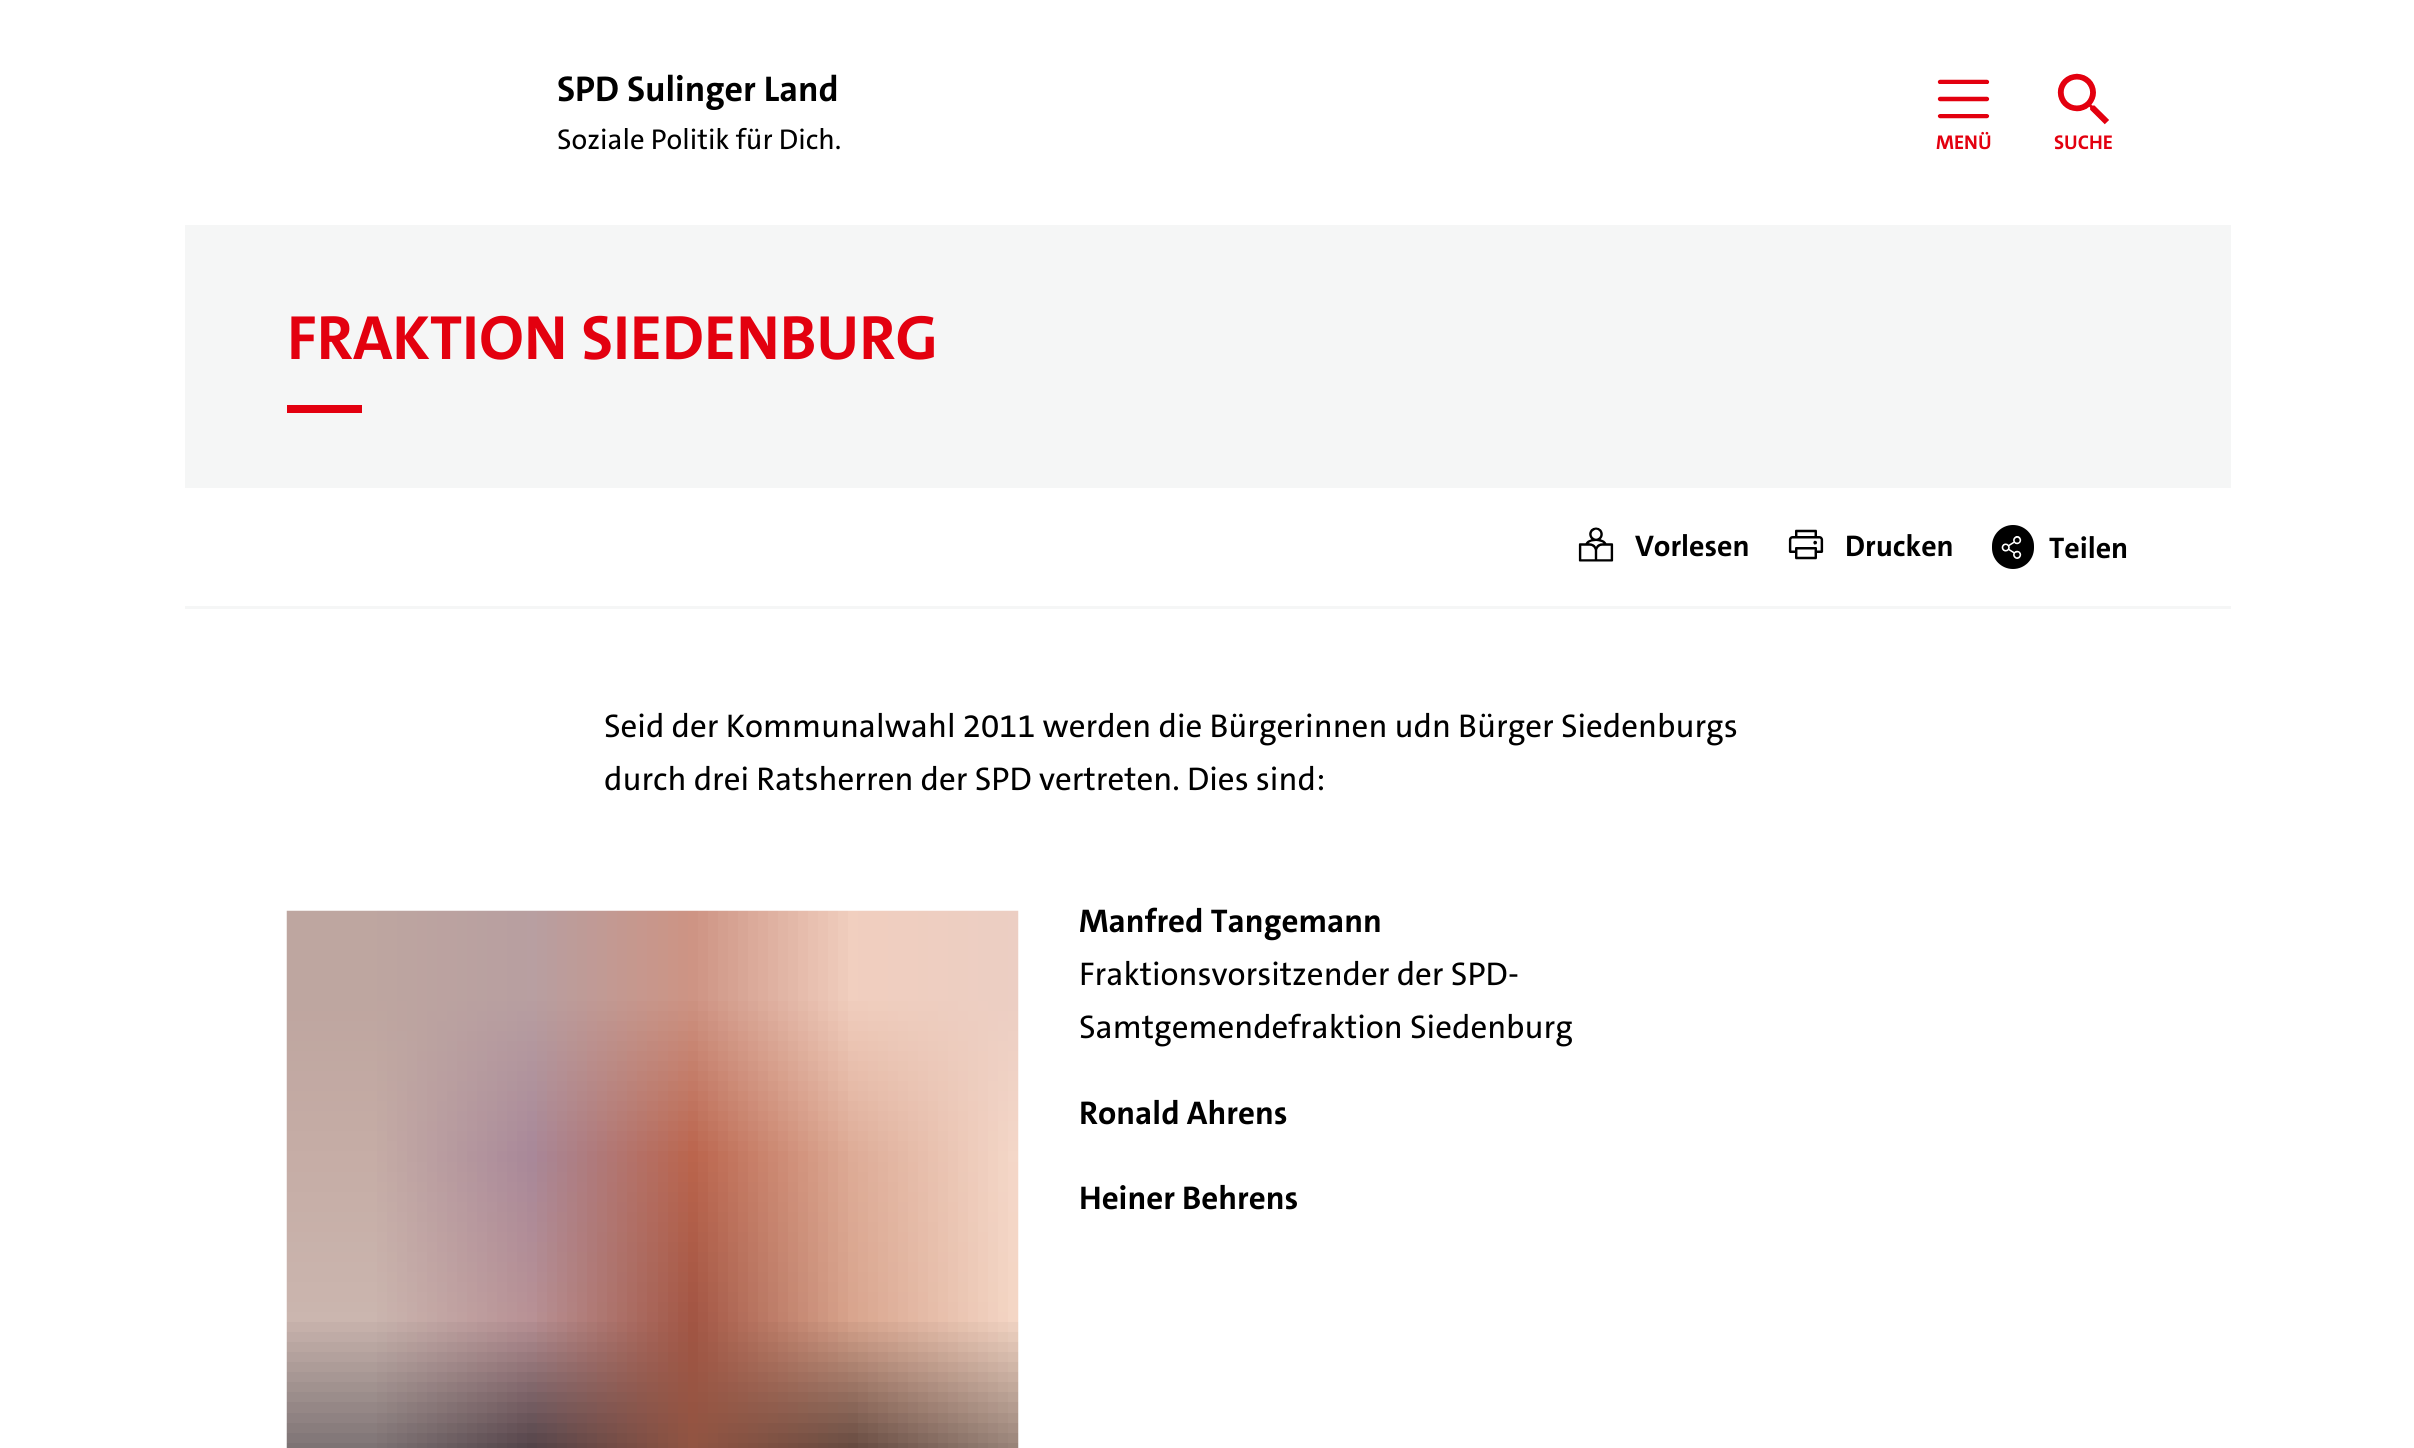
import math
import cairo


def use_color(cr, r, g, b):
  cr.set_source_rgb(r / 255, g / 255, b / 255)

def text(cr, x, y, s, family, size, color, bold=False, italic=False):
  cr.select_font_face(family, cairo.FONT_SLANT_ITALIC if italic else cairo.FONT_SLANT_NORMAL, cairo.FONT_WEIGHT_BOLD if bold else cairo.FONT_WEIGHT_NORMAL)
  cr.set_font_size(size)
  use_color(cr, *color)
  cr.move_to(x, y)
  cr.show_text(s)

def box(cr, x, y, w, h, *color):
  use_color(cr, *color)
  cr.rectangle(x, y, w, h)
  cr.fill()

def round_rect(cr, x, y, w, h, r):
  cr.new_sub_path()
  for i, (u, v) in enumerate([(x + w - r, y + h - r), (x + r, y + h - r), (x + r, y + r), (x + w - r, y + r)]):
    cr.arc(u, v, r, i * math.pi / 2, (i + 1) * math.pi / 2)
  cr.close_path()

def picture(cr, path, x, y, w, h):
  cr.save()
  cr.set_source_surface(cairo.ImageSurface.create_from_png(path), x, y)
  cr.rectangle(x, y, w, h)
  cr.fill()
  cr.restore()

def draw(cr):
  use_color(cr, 255, 255, 255)
  cr.paint()
  picture(cr, "img_01.png", 1937, 79, 53, 40)
  picture(cr, "img_02.png", 2057, 73, 52, 52)
  box(cr, 185, 225, 2046, 263, 245, 246, 246)
  box(cr, 287, 405, 75, 8, 227, 0, 15)
  box(cr, 185, 606, 2046, 3, 245, 246, 246)
  picture(cr, "img_03.png", 1578, 527, 36, 35)
  picture(cr, "img_04.png", 1788, 529, 36, 31)
  use_color(cr, 0, 0, 0)
  round_rect(cr, 1992, 525, 42, 44, 21)
  cr.fill()
  picture(cr, "img_05.png", 2001, 536, 21, 23)
  picture(cr, "img_06.png", 286, 910, 733, 538)
  text(cr, 557, 101, "SPD Sulinger Land", "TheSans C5", 36, (0, 0, 0), bold=True)
  text(cr, 557, 149, "Soziale Politik für Dich.", "TheSans C5 Medium", 28.75, (0, 0, 0))
  text(cr, 1936, 149, "MENÜ", "TheSans C5", 20, (227, 0, 15), bold=True)
  text(cr, 2054, 149, "SUCHE", "TheSans C5", 20, (227, 0, 15), bold=True)
  text(cr, 287, 359, "FRAKTION SIEDENBURG", "TheSans C5", 63, (227, 0, 15), bold=True)
  text(cr, 1635, 556, "Vorlesen", "TheSans C5", 30, (0, 0, 0), bold=True)
  text(cr, 1845, 556, "Drucken", "TheSans C5", 30, (0, 0, 0), bold=True)
  text(cr, 2049, 558, "Teilen", "TheSans C5", 30, (0, 0, 0), bold=True)
  text(cr, 604, 737, "Seid der Kommunalwahl 2011 werden die Bürgerinnen udn Bürger Siedenburgs", "TheSans C5 Medium", 33, (0, 0, 0))
  text(cr, 604, 790, "durch drei Ratsherren der SPD vertreten. Dies sind:", "TheSans C5 Medium", 33, (0, 0, 0))
  text(cr, 1079, 932, "Manfred Tangemann", "TheSans C5", 33, (0, 0, 0), bold=True)
  text(cr, 1079, 985, "Fraktionsvorsitzender der SPD-", "TheSans C5 Medium", 33, (0, 0, 0))
  text(cr, 1079, 1038, "Samtgemendefraktion Siedenburg", "TheSans C5 Medium", 33, (0, 0, 0))
  text(cr, 1079, 1124, "Ronald Ahrens", "TheSans C5", 33, (0, 0, 0), bold=True)
  text(cr, 1079, 1209, "Heiner Behrens", "TheSans C5", 33, (0, 0, 0), bold=True)


surface = cairo.ImageSurface(cairo.FORMAT_RGB24, 2414, 1448)
cr = cairo.Context(surface)
options = cairo.FontOptions()
options.set_hint_metrics(cairo.HINT_METRICS_OFF)
options.set_hint_style(cairo.HINT_STYLE_NONE)
cr.set_font_options(options)
cr.set_miter_limit(4)
draw(cr)
surface.write_to_png("out.png")
